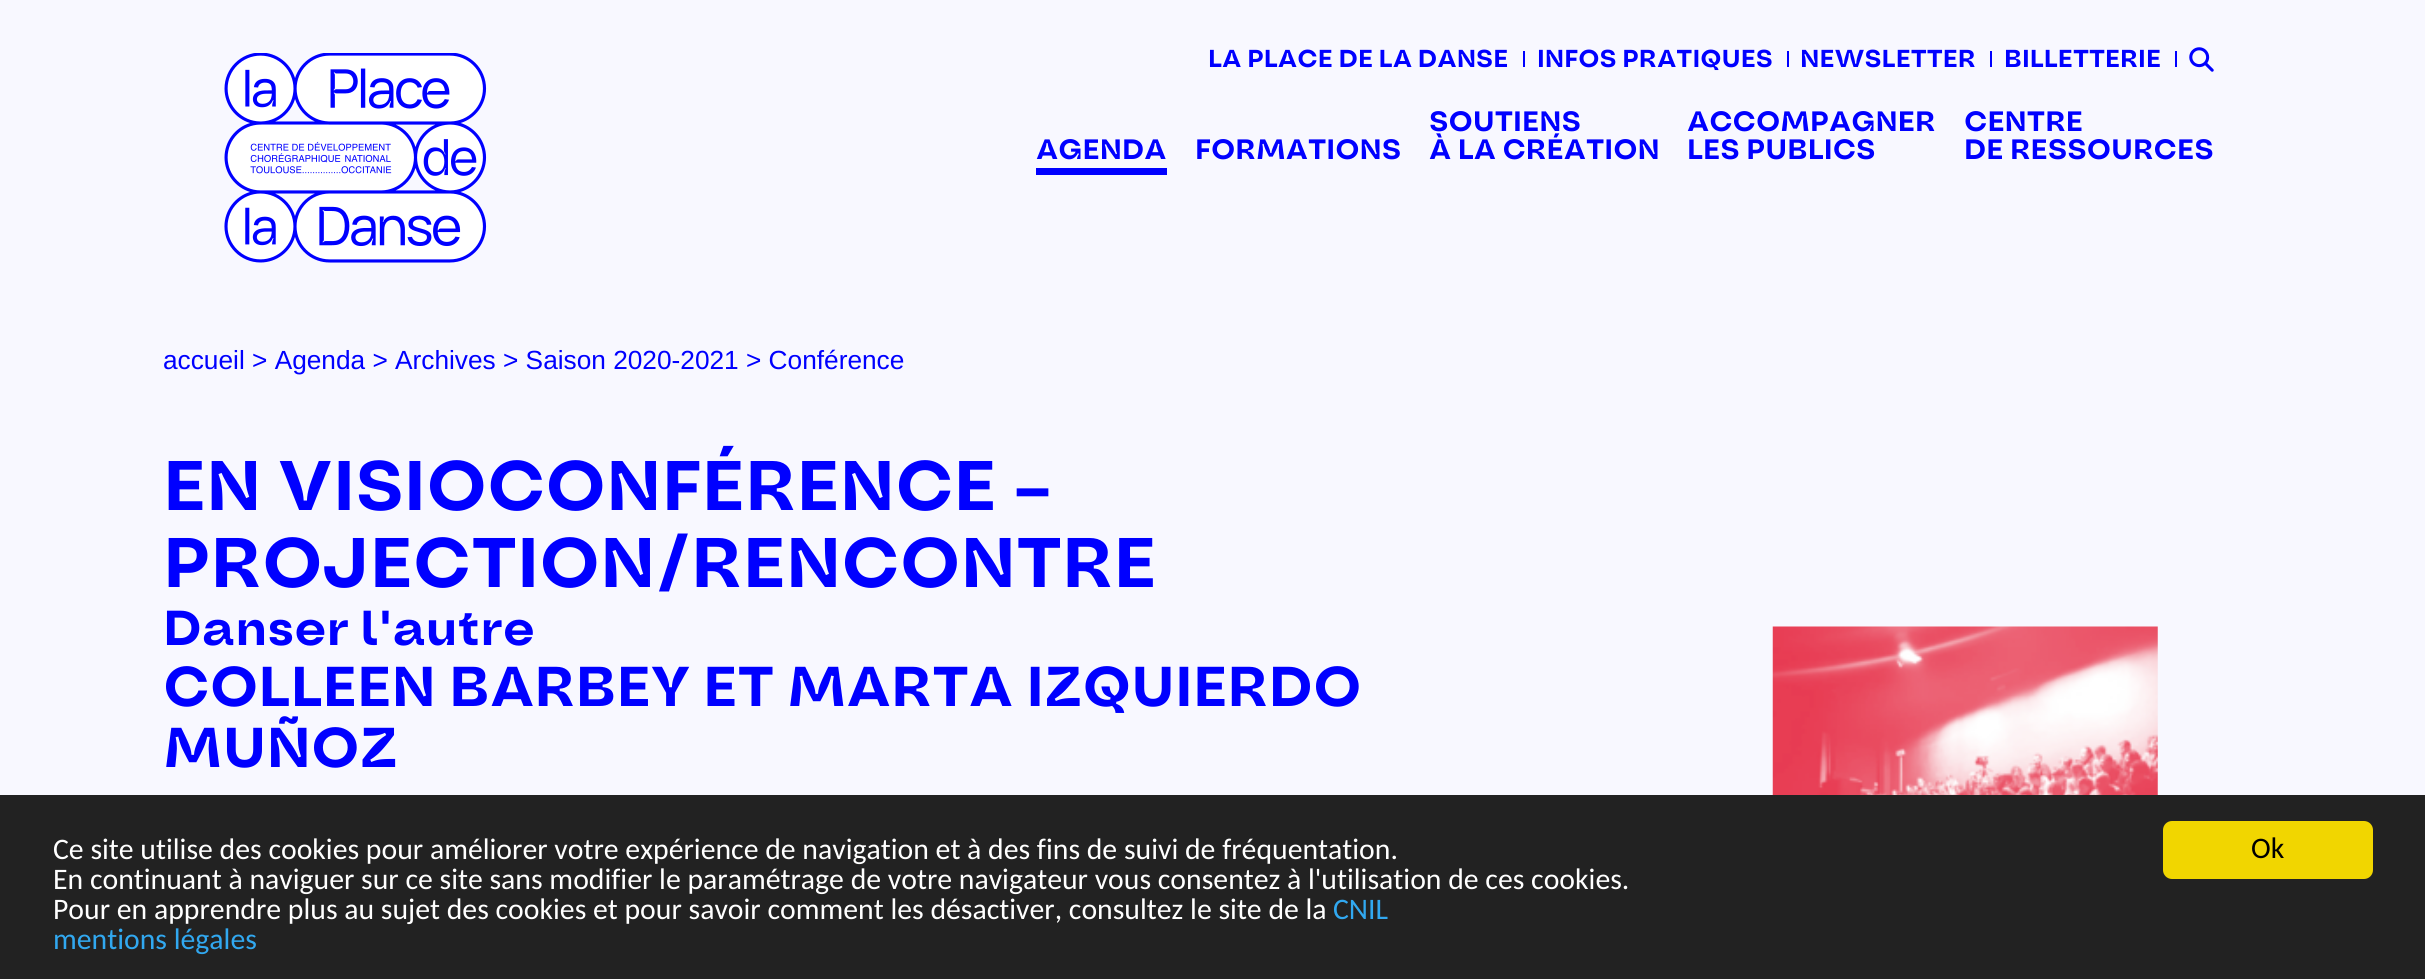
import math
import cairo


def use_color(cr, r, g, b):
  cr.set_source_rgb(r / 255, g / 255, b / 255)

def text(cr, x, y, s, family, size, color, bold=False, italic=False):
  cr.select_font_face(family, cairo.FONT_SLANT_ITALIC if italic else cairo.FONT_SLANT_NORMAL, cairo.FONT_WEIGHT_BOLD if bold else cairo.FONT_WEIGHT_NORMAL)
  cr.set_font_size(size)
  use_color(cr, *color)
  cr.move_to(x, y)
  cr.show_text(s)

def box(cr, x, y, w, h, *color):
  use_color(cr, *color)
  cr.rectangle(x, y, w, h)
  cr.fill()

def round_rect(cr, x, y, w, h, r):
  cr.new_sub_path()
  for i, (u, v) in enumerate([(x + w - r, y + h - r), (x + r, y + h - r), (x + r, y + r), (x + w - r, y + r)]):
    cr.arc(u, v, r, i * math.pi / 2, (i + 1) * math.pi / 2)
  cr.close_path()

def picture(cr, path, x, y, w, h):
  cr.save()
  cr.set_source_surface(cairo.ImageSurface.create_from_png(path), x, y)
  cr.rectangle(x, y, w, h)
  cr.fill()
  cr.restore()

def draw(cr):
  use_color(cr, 248, 248, 255)
  cr.paint()
  picture(cr, "img_01.png", 224, 53, 263, 210)
  box(cr, 1523, 51, 2, 16, 0, 0, 255)
  box(cr, 1787, 51, 2, 16, 0, 0, 255)
  box(cr, 1990, 51, 2, 16, 0, 0, 255)
  box(cr, 2175, 51, 2, 16, 0, 0, 255)
  picture(cr, "img_02.png", 2189, 47, 25, 25)
  box(cr, 1036, 168, 131, 7, 0, 0, 255)
  picture(cr, "img_03.png", 1772, 626, 386, 169)
  box(cr, 0, 795, 2425, 184, 34, 34, 34)
  use_color(cr, 241, 214, 0)
  round_rect(cr, 2163, 821, 210, 58, 9)
  cr.fill()
  text(cr, 1208, 67, "LA PLACE DE LA DANSE", "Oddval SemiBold", 24.5, (0, 0, 255))
  text(cr, 1537, 67, "INFOS PRATIQUES", "Oddval SemiBold", 24.5, (0, 0, 255))
  text(cr, 1800, 67, "NEWSLETTER", "Oddval SemiBold", 24.5, (0, 0, 255))
  text(cr, 2004, 67, "BILLETTERIE", "Oddval SemiBold", 24.5, (0, 0, 255))
  text(cr, 1036, 159, "AGENDA", "Oddval SemiBold", 28, (0, 0, 255))
  text(cr, 1195, 159, "FORMATIONS", "Oddval SemiBold", 28, (0, 0, 255))
  text(cr, 1429, 131, "SOUTIENS", "Oddval SemiBold", 28, (0, 0, 255))
  text(cr, 1429, 159, "À LA CRÉATION", "Oddval SemiBold", 28, (0, 0, 255))
  text(cr, 1687, 131, "ACCOMPAGNER", "Oddval SemiBold", 28, (0, 0, 255))
  text(cr, 1687, 159, "LES PUBLICS", "Oddval SemiBold", 28, (0, 0, 255))
  text(cr, 1964, 131, "CENTRE", "Oddval SemiBold", 28, (0, 0, 255))
  text(cr, 1964, 159, "DE RESSOURCES", "Oddval SemiBold", 28, (0, 0, 255))
  text(cr, 163, 369, "accueil > Agenda > Archives > Saison 2020-2021 > Conférence", "Liberation Sans", 26.25, (0, 0, 255))
  text(cr, 163, 510, "EN VISIOCONFÉRENCE –", "Oddval SemiBold", 70, (0, 0, 255))
  text(cr, 163, 587, "PROJECTION/RENCONTRE", "Oddval SemiBold", 70, (0, 0, 255))
  text(cr, 163, 645, "Danser l'autre", "Oddval SemiBold", 49, (0, 0, 255))
  text(cr, 163, 706, "COLLEEN BARBEY ET MARTA IZQUIERDO", "Oddval SemiBold", 56, (0, 0, 255))
  text(cr, 163, 767, "MUÑOZ", "Oddval SemiBold", 56, (0, 0, 255))
  text(cr, 53, 859, "Ce site utilise des cookies pour améliorer votre expérience de navigation et à des fins de suivi de fréquentation.", "Carlito", 29.75, (255, 255, 255))
  text(cr, 53, 889, "En continuant à naviguer sur ce site sans modifier le paramétrage de votre navigateur vous consentez à l'utilisation de ces cookies.", "Carlito", 29.75, (255, 255, 255))
  text(cr, 53, 919, "Pour en apprendre plus au sujet des cookies et pour savoir comment les désactiver, consultez le site de la", "Carlito", 29.75, (255, 255, 255))
  text(cr, 1333, 919, "CNIL", "Carlito", 29.75, (49, 168, 240))
  text(cr, 53, 949, "mentions légales", "Carlito", 29.75, (49, 168, 240))
  text(cr, 2251, 858, "Ok", "Carlito", 29.75, (0, 0, 0))


surface = cairo.ImageSurface(cairo.FORMAT_RGB24, 2425, 979)
cr = cairo.Context(surface)
options = cairo.FontOptions()
options.set_hint_metrics(cairo.HINT_METRICS_OFF)
options.set_hint_style(cairo.HINT_STYLE_NONE)
cr.set_font_options(options)
cr.set_miter_limit(4)
draw(cr)
surface.write_to_png("out.png")
